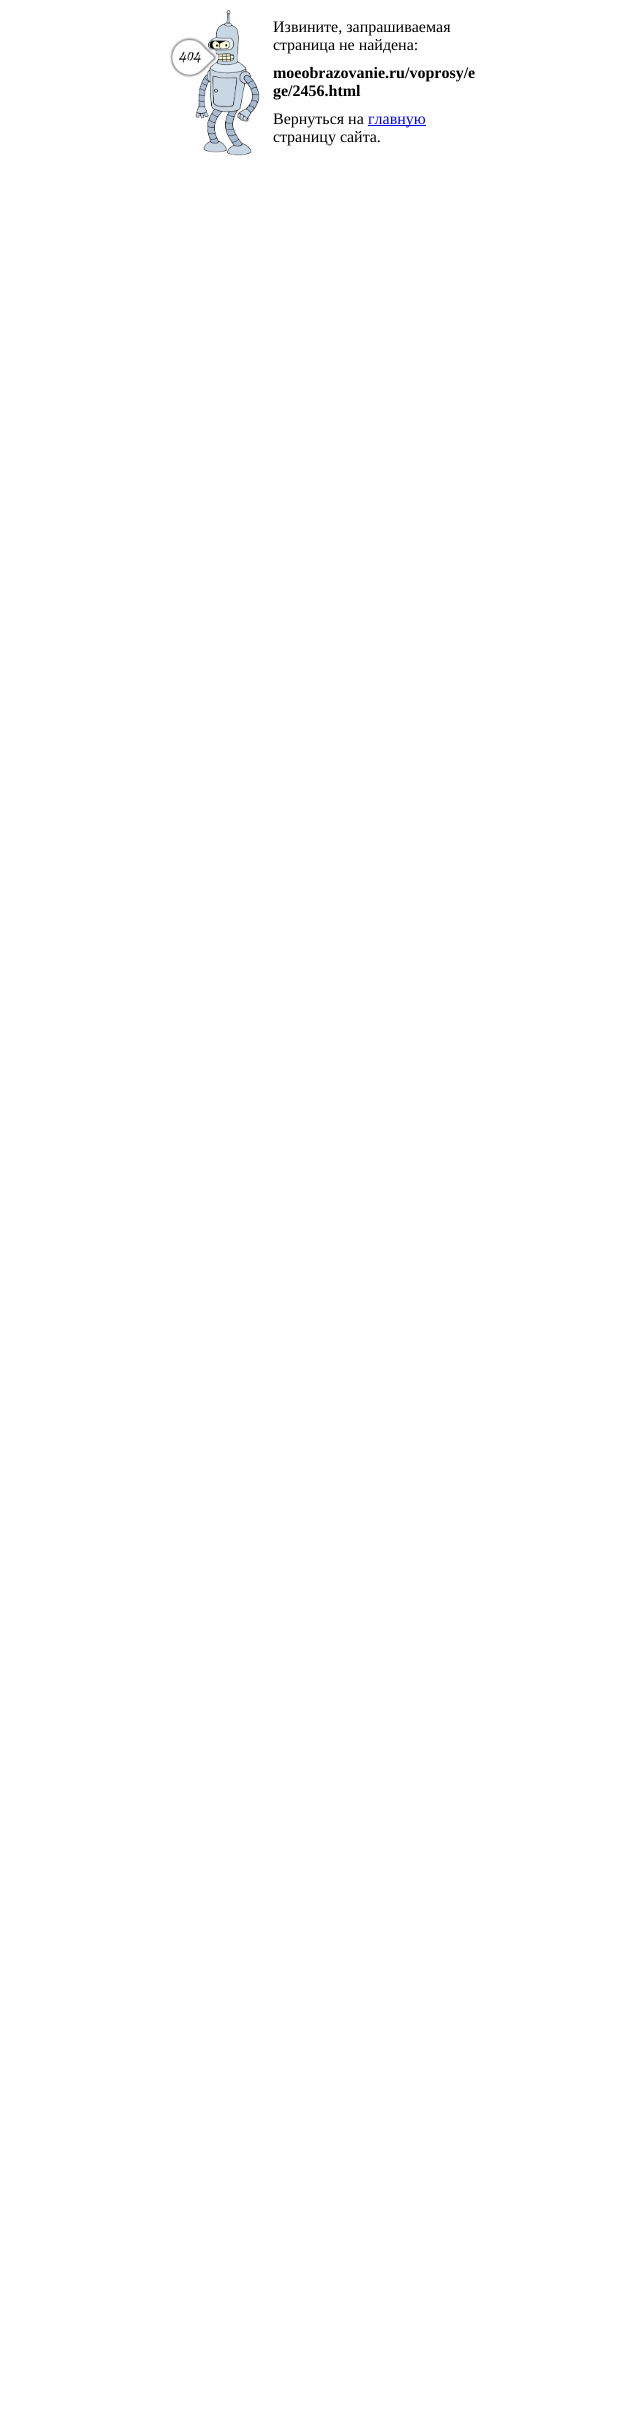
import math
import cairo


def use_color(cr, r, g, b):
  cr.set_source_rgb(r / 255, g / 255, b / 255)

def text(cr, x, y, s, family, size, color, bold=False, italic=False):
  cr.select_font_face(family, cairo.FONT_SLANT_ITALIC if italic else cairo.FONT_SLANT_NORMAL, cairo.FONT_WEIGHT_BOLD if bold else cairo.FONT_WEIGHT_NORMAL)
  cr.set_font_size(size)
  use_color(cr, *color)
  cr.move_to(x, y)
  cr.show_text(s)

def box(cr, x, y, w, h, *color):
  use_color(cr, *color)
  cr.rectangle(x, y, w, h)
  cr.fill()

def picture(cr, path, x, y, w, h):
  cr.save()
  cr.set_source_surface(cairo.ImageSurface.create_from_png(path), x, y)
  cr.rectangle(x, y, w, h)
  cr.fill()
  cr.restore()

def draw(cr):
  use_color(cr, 255, 255, 255)
  cr.paint()
  picture(cr, "img_01.png", 170, 10, 90, 146)
  box(cr, 368, 125, 58, 1, 0, 0, 238)
  text(cr, 273, 32, "Извините, запрашиваемая", "Liberation Serif", 16, (0, 0, 0))
  text(cr, 273, 50, "страница не найдена:", "Liberation Serif", 16, (0, 0, 0))
  text(cr, 273, 78, "moeobrazovanie.ru/voprosy/e", "Liberation Serif", 16, (0, 0, 0), bold=True)
  text(cr, 273, 96, "ge/2456.html", "Liberation Serif", 16, (0, 0, 0), bold=True)
  text(cr, 273, 124, "Вернуться на", "Liberation Serif", 16, (0, 0, 0))
  text(cr, 368, 124, "главную", "Liberation Serif", 16, (0, 0, 238))
  text(cr, 273, 142, "страницу сайта.", "Liberation Serif", 16, (0, 0, 0))


surface = cairo.ImageSurface(cairo.FORMAT_RGB24, 638, 2426)
cr = cairo.Context(surface)
options = cairo.FontOptions()
options.set_hint_metrics(cairo.HINT_METRICS_OFF)
options.set_hint_style(cairo.HINT_STYLE_NONE)
cr.set_font_options(options)
cr.set_miter_limit(4)
draw(cr)
surface.write_to_png("out.png")
